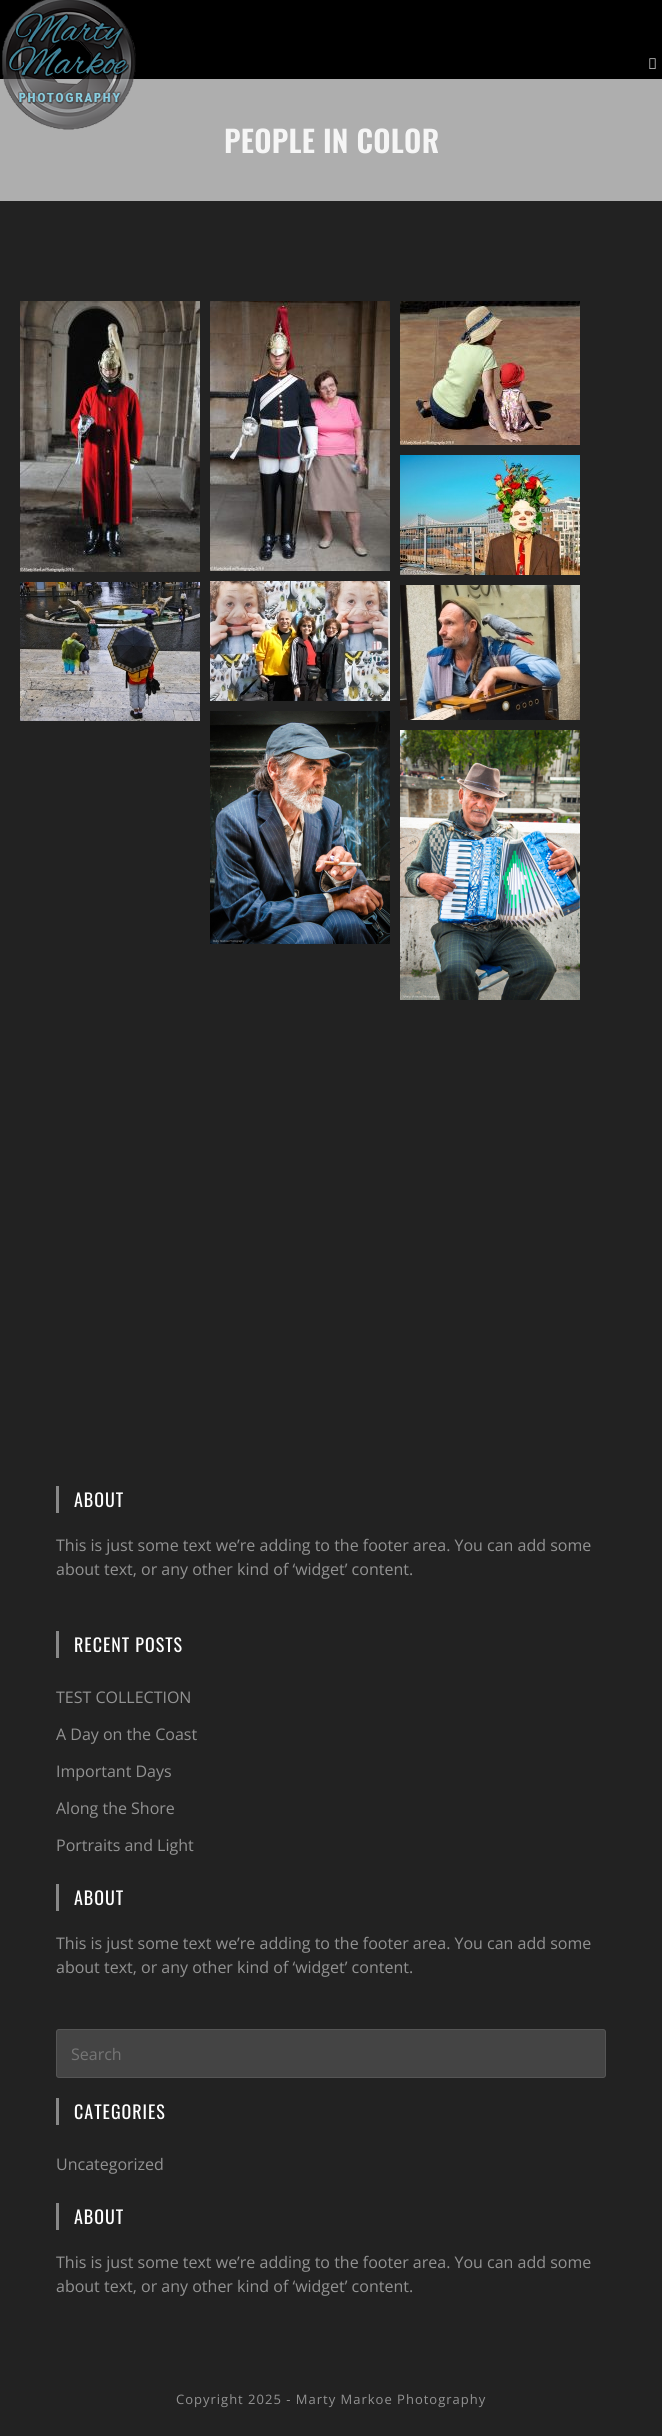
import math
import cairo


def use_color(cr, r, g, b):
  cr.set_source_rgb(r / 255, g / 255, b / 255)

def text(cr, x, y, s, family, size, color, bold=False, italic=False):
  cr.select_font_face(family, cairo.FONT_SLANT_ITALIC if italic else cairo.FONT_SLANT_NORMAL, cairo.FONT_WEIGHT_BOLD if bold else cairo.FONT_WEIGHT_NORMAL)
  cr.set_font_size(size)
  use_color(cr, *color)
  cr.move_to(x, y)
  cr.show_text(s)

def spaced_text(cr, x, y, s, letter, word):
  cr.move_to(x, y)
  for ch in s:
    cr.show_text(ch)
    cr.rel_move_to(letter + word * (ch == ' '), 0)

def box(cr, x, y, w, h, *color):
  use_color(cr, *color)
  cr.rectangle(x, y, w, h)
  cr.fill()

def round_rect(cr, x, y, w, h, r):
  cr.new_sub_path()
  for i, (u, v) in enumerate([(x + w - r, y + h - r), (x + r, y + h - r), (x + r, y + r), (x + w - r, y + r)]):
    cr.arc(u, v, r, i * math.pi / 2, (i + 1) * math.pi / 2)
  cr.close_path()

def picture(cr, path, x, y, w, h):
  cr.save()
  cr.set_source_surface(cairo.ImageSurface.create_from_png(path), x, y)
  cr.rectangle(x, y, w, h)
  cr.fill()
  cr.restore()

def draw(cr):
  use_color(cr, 34, 34, 34)
  cr.paint()
  box(cr, 0, 0, 662, 79, 0, 0, 0)
  box(cr, 0, 79, 662, 122, 174, 174, 174)
  picture(cr, "img_01.png", 2, 0, 134, 130)
  picture(cr, "img_02.png", 649, 58, 7, 11)
  picture(cr, "img_03.png", 20, 301, 180, 271)
  picture(cr, "img_04.png", 210, 301, 180, 270)
  picture(cr, "img_05.png", 400, 301, 180, 144)
  picture(cr, "img_06.png", 400, 455, 180, 120)
  picture(cr, "img_07.png", 20, 582, 180, 139)
  picture(cr, "img_08.png", 210, 581, 180, 120)
  picture(cr, "img_09.png", 400, 585, 180, 135)
  picture(cr, "img_10.png", 210, 711, 180, 233)
  picture(cr, "img_11.png", 400, 730, 180, 270)
  box(cr, 56, 1486, 3, 27, 136, 136, 136)
  box(cr, 56, 1631, 3, 27, 136, 136, 136)
  box(cr, 56, 1884, 3, 27, 136, 136, 136)
  use_color(cr, 68, 68, 68)
  round_rect(cr, 56.5, 2029.5, 549, 48, 2.5)
  cr.fill_preserve()
  use_color(cr, 85, 85, 85)
  cr.set_line_width(1)
  cr.stroke()
  box(cr, 56, 2098, 3, 27, 136, 136, 136)
  box(cr, 56, 2203, 3, 27, 136, 136, 136)
  cr.select_font_face("Oswald SemiBold")
  cr.set_font_size(30)
  use_color(cr, 245, 245, 245)
  spaced_text(cr, 224, 153, "PEOPLE IN COLOR", 0.25, 0)
  cr.select_font_face("Oswald")
  cr.set_font_size(18)
  use_color(cr, 255, 255, 255)
  spaced_text(cr, 74, 1507, "ABOUT", 1, 0)
  text(cr, 56, 1551, "This is just some text we’re adding to the footer area. You can add some", "Open Sans", 16, (146, 146, 146))
  text(cr, 56, 1575, "about text, or any other kind of ‘widget’ content.", "Open Sans", 16, (146, 146, 146))
  cr.select_font_face("Oswald")
  cr.set_font_size(18)
  use_color(cr, 255, 255, 255)
  spaced_text(cr, 74, 1652, "RECENT POSTS", 1, 0)
  text(cr, 56, 1703, "TEST COLLECTION", "Open Sans", 16, (146, 146, 146))
  text(cr, 56, 1740, "A Day on the Coast", "Open Sans", 16, (146, 146, 146))
  text(cr, 56, 1777, "Important Days", "Open Sans", 16, (146, 146, 146))
  text(cr, 56, 1814, "Along the Shore", "Open Sans", 16, (146, 146, 146))
  text(cr, 56, 1851, "Portraits and Light", "Open Sans", 16, (146, 146, 146))
  cr.select_font_face("Oswald")
  cr.set_font_size(18)
  use_color(cr, 255, 255, 255)
  spaced_text(cr, 74, 1905, "ABOUT", 1, 0)
  text(cr, 56, 1949, "This is just some text we’re adding to the footer area. You can add some", "Open Sans", 16, (146, 146, 146))
  text(cr, 56, 1973, "about text, or any other kind of ‘widget’ content.", "Open Sans", 16, (146, 146, 146))
  text(cr, 71, 2060, "Search", "Open Sans", 16, (117, 117, 117))
  cr.select_font_face("Oswald")
  cr.set_font_size(18)
  use_color(cr, 255, 255, 255)
  spaced_text(cr, 74, 2119, "CATEGORIES", 1, 0)
  text(cr, 56, 2170, "Uncategorized", "Open Sans", 16, (146, 146, 146))
  cr.select_font_face("Oswald")
  cr.set_font_size(18)
  use_color(cr, 255, 255, 255)
  spaced_text(cr, 74, 2224, "ABOUT", 1, 0)
  text(cr, 56, 2268, "This is just some text we’re adding to the footer area. You can add some", "Open Sans", 16, (146, 146, 146))
  text(cr, 56, 2292, "about text, or any other kind of ‘widget’ content.", "Open Sans", 16, (146, 146, 146))
  cr.set_font_size(13)
  spaced_text(cr, 176, 2404, "Copyright 2025 - Marty Markoe Photography", 1, 0)


surface = cairo.ImageSurface(cairo.FORMAT_RGB24, 662, 2436)
cr = cairo.Context(surface)
options = cairo.FontOptions()
options.set_hint_metrics(cairo.HINT_METRICS_OFF)
options.set_hint_style(cairo.HINT_STYLE_NONE)
cr.set_font_options(options)
cr.set_miter_limit(4)
draw(cr)
surface.write_to_png("out.png")
